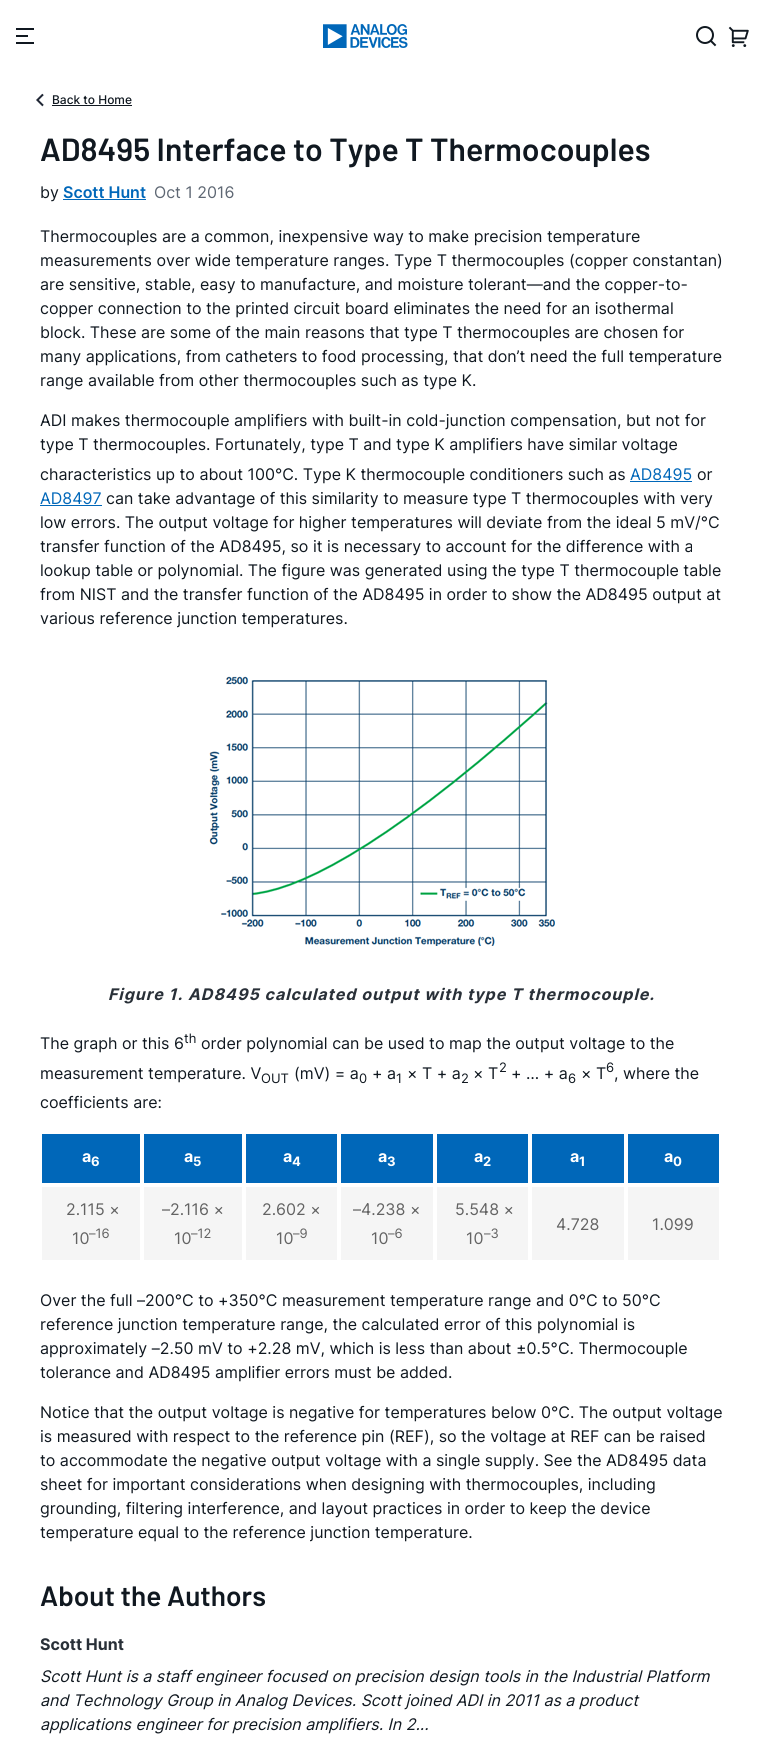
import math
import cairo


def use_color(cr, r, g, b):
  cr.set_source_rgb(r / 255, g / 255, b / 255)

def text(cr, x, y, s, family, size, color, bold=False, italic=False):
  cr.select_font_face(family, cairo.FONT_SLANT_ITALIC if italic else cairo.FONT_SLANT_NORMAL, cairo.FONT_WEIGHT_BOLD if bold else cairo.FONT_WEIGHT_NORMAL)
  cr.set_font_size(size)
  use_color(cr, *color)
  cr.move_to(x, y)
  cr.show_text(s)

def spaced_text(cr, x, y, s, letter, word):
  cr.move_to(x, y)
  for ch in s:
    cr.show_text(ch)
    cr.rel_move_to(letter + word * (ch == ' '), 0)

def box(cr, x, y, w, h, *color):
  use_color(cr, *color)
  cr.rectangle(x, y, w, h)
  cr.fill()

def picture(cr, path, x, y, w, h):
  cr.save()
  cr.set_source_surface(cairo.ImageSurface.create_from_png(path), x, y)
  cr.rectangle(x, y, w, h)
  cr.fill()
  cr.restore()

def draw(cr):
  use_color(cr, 255, 255, 255)
  cr.paint()
  picture(cr, "img_01.png", 16, 28, 18, 16)
  picture(cr, "img_02.png", 323, 24, 85, 24)
  picture(cr, "img_03.png", 696, 26, 21, 21)
  picture(cr, "img_04.png", 728, 26, 21, 21)
  picture(cr, "img_05.png", 36, 93, 8, 14)
  box(cr, 52, 105, 80, 1, 16, 24, 32)
  box(cr, 63, 199, 83, 1, 0, 103, 185)
  box(cr, 630, 481, 62, 1, 0, 103, 185)
  box(cr, 40, 505, 62, 1, 0, 103, 185)
  picture(cr, "img_06.png", 209, 676, 346, 270)
  box(cr, 42, 1134, 98, 49, 0, 103, 185)
  box(cr, 144, 1134, 98, 49, 0, 103, 185)
  box(cr, 246, 1134, 91, 49, 0, 103, 185)
  box(cr, 341, 1134, 92, 49, 0, 103, 185)
  box(cr, 437, 1134, 91, 49, 0, 103, 185)
  box(cr, 532, 1134, 92, 49, 0, 103, 185)
  box(cr, 628, 1134, 91, 49, 0, 103, 185)
  box(cr, 42, 1187, 98, 73, 245, 245, 245)
  box(cr, 144, 1187, 98, 73, 245, 245, 245)
  box(cr, 246, 1187, 91, 73, 245, 245, 245)
  box(cr, 341, 1187, 92, 73, 245, 245, 245)
  box(cr, 437, 1187, 91, 73, 245, 245, 245)
  box(cr, 532, 1187, 92, 73, 245, 245, 245)
  box(cr, 628, 1187, 91, 73, 245, 245, 245)
  text(cr, 52, 104, "Back to Home", "Inter Medium", 12, (16, 24, 32))
  text(cr, 40, 161, "AD8495 Interface to Type T Thermocouples", "Barlow SemiBold", 32, (16, 24, 32))
  text(cr, 40, 198, "by", "Inter", 16, (16, 24, 32))
  text(cr, 63, 198, "Scott Hunt", "Inter SemiBold", 16, (0, 103, 185))
  text(cr, 154, 198, "Oct 1 2016", "Inter", 16, (94, 103, 115))
  text(cr, 40, 242, "Thermocouples are a common, inexpensive way to make precision temperature", "Inter", 16, (16, 24, 32))
  text(cr, 40, 266, "measurements over wide temperature ranges. Type T thermocouples (copper constantan)", "Inter", 16, (16, 24, 32))
  text(cr, 40, 290, "are sensitive, stable, easy to manufacture, and moisture tolerant—and the copper-to-", "Inter", 16, (16, 24, 32))
  text(cr, 40, 314, "copper connection to the printed circuit board eliminates the need for an isothermal", "Inter", 16, (16, 24, 32))
  text(cr, 40, 338, "block. These are some of the main reasons that type T thermocouples are chosen for", "Inter", 16, (16, 24, 32))
  text(cr, 40, 362, "many applications, from catheters to food processing, that don’t need the full temperature", "Inter", 16, (16, 24, 32))
  text(cr, 40, 386, "range available from other thermocouples such as type K.", "Inter", 16, (16, 24, 32))
  text(cr, 40, 426, "ADI makes thermocouple amplifiers with built-in cold-junction compensation, but not for", "Inter", 16, (16, 24, 32))
  text(cr, 40, 450, "type T thermocouples. Fortunately, type T and type K amplifiers have similar voltage", "Inter", 16, (16, 24, 32))
  text(cr, 40, 480, "characteristics up to about 100°C. Type K thermocouple conditioners such as", "Inter", 16, (16, 24, 32))
  text(cr, 630, 480, "AD8495", "Inter", 16, (0, 103, 185))
  text(cr, 697, 480, "or", "Inter", 16, (16, 24, 32))
  text(cr, 40, 504, "AD8497", "Inter", 16, (0, 103, 185))
  text(cr, 106, 504, "can take advantage of this similarity to measure type T thermocouples with very", "Inter", 16, (16, 24, 32))
  text(cr, 40, 528, "low errors. The output voltage for higher temperatures will deviate from the ideal 5 mV/°C", "Inter", 16, (16, 24, 32))
  text(cr, 40, 552, "transfer function of the AD8495, so it is necessary to account for the difference with a", "Inter", 16, (16, 24, 32))
  text(cr, 40, 576, "lookup table or polynomial. The figure was generated using the type T thermocouple table", "Inter", 16, (16, 24, 32))
  text(cr, 40, 600, "from NIST and the transfer function of the AD8495 in order to show the AD8495 output at", "Inter", 16, (16, 24, 32))
  text(cr, 40, 624, "various reference junction temperatures.", "Inter", 16, (16, 24, 32))
  cr.select_font_face("Inter", cairo.FONT_SLANT_ITALIC, cairo.FONT_WEIGHT_BOLD)
  use_color(cr, 41, 48, 56)
  spaced_text(cr, 108, 1000, "Figure 1. AD8495 calculated output with type T thermocouple.", 1, 0)
  text(cr, 40, 1049, "The graph or this 6", "Inter", 16, (16, 24, 32))
  text(cr, 184, 1043, "th", "Inter", 13, (16, 24, 32))
  text(cr, 201, 1049, "order polynomial can be used to map the output voltage to the", "Inter", 16, (16, 24, 32))
  text(cr, 40, 1079, "measurement temperature. V", "Inter", 16, (16, 24, 32))
  text(cr, 261, 1083, "OUT", "Inter", 13, (16, 24, 32))
  text(cr, 294, 1079, "(mV) = a", "Inter", 16, (16, 24, 32))
  text(cr, 359, 1083, "0", "Inter", 13, (16, 24, 32))
  text(cr, 372, 1079, "+ a", "Inter", 16, (16, 24, 32))
  text(cr, 396, 1083, "1", "Inter", 13, (16, 24, 32))
  text(cr, 407, 1079, "× T + a", "Inter", 16, (16, 24, 32))
  text(cr, 461, 1083, "2", "Inter", 13, (16, 24, 32))
  text(cr, 473, 1079, "× T", "Inter", 16, (16, 24, 32))
  text(cr, 499, 1072, "2", "Inter", 13, (16, 24, 32))
  text(cr, 511, 1079, "+ … + a", "Inter", 16, (16, 24, 32))
  text(cr, 568, 1083, "6", "Inter", 13, (16, 24, 32))
  text(cr, 581, 1079, "× T", "Inter", 16, (16, 24, 32))
  text(cr, 606, 1072, "6", "Inter", 13, (16, 24, 32))
  text(cr, 614, 1079, ", where the", "Inter", 16, (16, 24, 32))
  text(cr, 40, 1108, "coefficients are:", "Inter", 16, (16, 24, 32))
  text(cr, 82, 1162, "a", "Inter", 16, (255, 255, 255), bold=True)
  text(cr, 91, 1166, "6", "Inter", 13, (255, 255, 255), bold=True)
  text(cr, 184, 1162, "a", "Inter", 16, (255, 255, 255), bold=True)
  text(cr, 193, 1166, "5", "Inter", 13, (255, 255, 255), bold=True)
  text(cr, 283, 1162, "a", "Inter", 16, (255, 255, 255), bold=True)
  text(cr, 292, 1166, "4", "Inter", 13, (255, 255, 255), bold=True)
  text(cr, 378, 1162, "a", "Inter", 16, (255, 255, 255), bold=True)
  text(cr, 387, 1166, "3", "Inter", 13, (255, 255, 255), bold=True)
  text(cr, 474, 1162, "a", "Inter", 16, (255, 255, 255), bold=True)
  text(cr, 483, 1166, "2", "Inter", 13, (255, 255, 255), bold=True)
  text(cr, 570, 1162, "a", "Inter", 16, (255, 255, 255), bold=True)
  text(cr, 579, 1166, "1", "Inter", 13, (255, 255, 255), bold=True)
  text(cr, 664, 1162, "a", "Inter", 16, (255, 255, 255), bold=True)
  text(cr, 673, 1166, "0", "Inter", 13, (255, 255, 255), bold=True)
  text(cr, 66, 1215, "2.115 ×", "Inter", 16, (99, 99, 99))
  text(cr, 72, 1244, "10", "Inter", 16, (99, 99, 99))
  text(cr, 89, 1238, "–16", "Inter", 13, (99, 99, 99))
  text(cr, 162, 1215, "–2.116 ×", "Inter", 16, (99, 99, 99))
  text(cr, 174, 1244, "10", "Inter", 16, (99, 99, 99))
  text(cr, 191, 1238, "–12", "Inter", 13, (99, 99, 99))
  text(cr, 262, 1215, "2.602 ×", "Inter", 16, (99, 99, 99))
  text(cr, 276, 1244, "10", "Inter", 16, (99, 99, 99))
  text(cr, 293, 1238, "–9", "Inter", 13, (99, 99, 99))
  text(cr, 353, 1215, "–4.238 ×", "Inter", 16, (99, 99, 99))
  text(cr, 371, 1244, "10", "Inter", 16, (99, 99, 99))
  text(cr, 388, 1238, "–6", "Inter", 13, (99, 99, 99))
  text(cr, 455, 1215, "5.548 ×", "Inter", 16, (99, 99, 99))
  text(cr, 466, 1244, "10", "Inter", 16, (99, 99, 99))
  text(cr, 484, 1238, "–3", "Inter", 13, (99, 99, 99))
  text(cr, 556, 1230, "4.728", "Inter", 16, (99, 99, 99))
  text(cr, 652, 1230, "1.099", "Inter", 16, (99, 99, 99))
  text(cr, 40, 1306, "Over the full –200°C to +350°C measurement temperature range and 0°C to 50°C", "Inter", 16, (16, 24, 32))
  text(cr, 40, 1330, "reference junction temperature range, the calculated error of this polynomial is", "Inter", 16, (16, 24, 32))
  text(cr, 40, 1354, "approximately –2.50 mV to +2.28 mV, which is less than about ±0.5°C. Thermocouple", "Inter", 16, (16, 24, 32))
  text(cr, 40, 1378, "tolerance and AD8495 amplifier errors must be added.", "Inter", 16, (16, 24, 32))
  text(cr, 40, 1418, "Notice that the output voltage is negative for temperatures below 0°C. The output voltage", "Inter", 16, (16, 24, 32))
  text(cr, 40, 1442, "is measured with respect to the reference pin (REF), so the voltage at REF can be raised", "Inter", 16, (16, 24, 32))
  text(cr, 40, 1466, "to accommodate the negative output voltage with a single supply. See the AD8495 data", "Inter", 16, (16, 24, 32))
  text(cr, 40, 1490, "sheet for important considerations when designing with thermocouples, including", "Inter", 16, (16, 24, 32))
  text(cr, 40, 1514, "grounding, filtering interference, and layout practices in order to keep the device", "Inter", 16, (16, 24, 32))
  text(cr, 40, 1538, "temperature equal to the reference junction temperature.", "Inter", 16, (16, 24, 32))
  text(cr, 40, 1606, "About the Authors", "Barlow SemiBold", 28, (16, 24, 32))
  text(cr, 40, 1650, "Scott Hunt", "Inter", 16, (41, 48, 56), bold=True)
  text(cr, 40, 1682, "Scott Hunt is a staff engineer focused on precision design tools in the Industrial Platform", "Inter", 16, (16, 24, 32), italic=True)
  text(cr, 40, 1706, "and Technology Group in Analog Devices. Scott joined ADI in 2011 as a product", "Inter", 16, (16, 24, 32), italic=True)
  text(cr, 40, 1730, "applications engineer for precision amplifiers. In 2...", "Inter", 16, (16, 24, 32), italic=True)


surface = cairo.ImageSurface(cairo.FORMAT_RGB24, 763, 1740)
cr = cairo.Context(surface)
options = cairo.FontOptions()
options.set_hint_metrics(cairo.HINT_METRICS_OFF)
options.set_hint_style(cairo.HINT_STYLE_NONE)
cr.set_font_options(options)
cr.set_miter_limit(4)
draw(cr)
surface.write_to_png("out.png")
